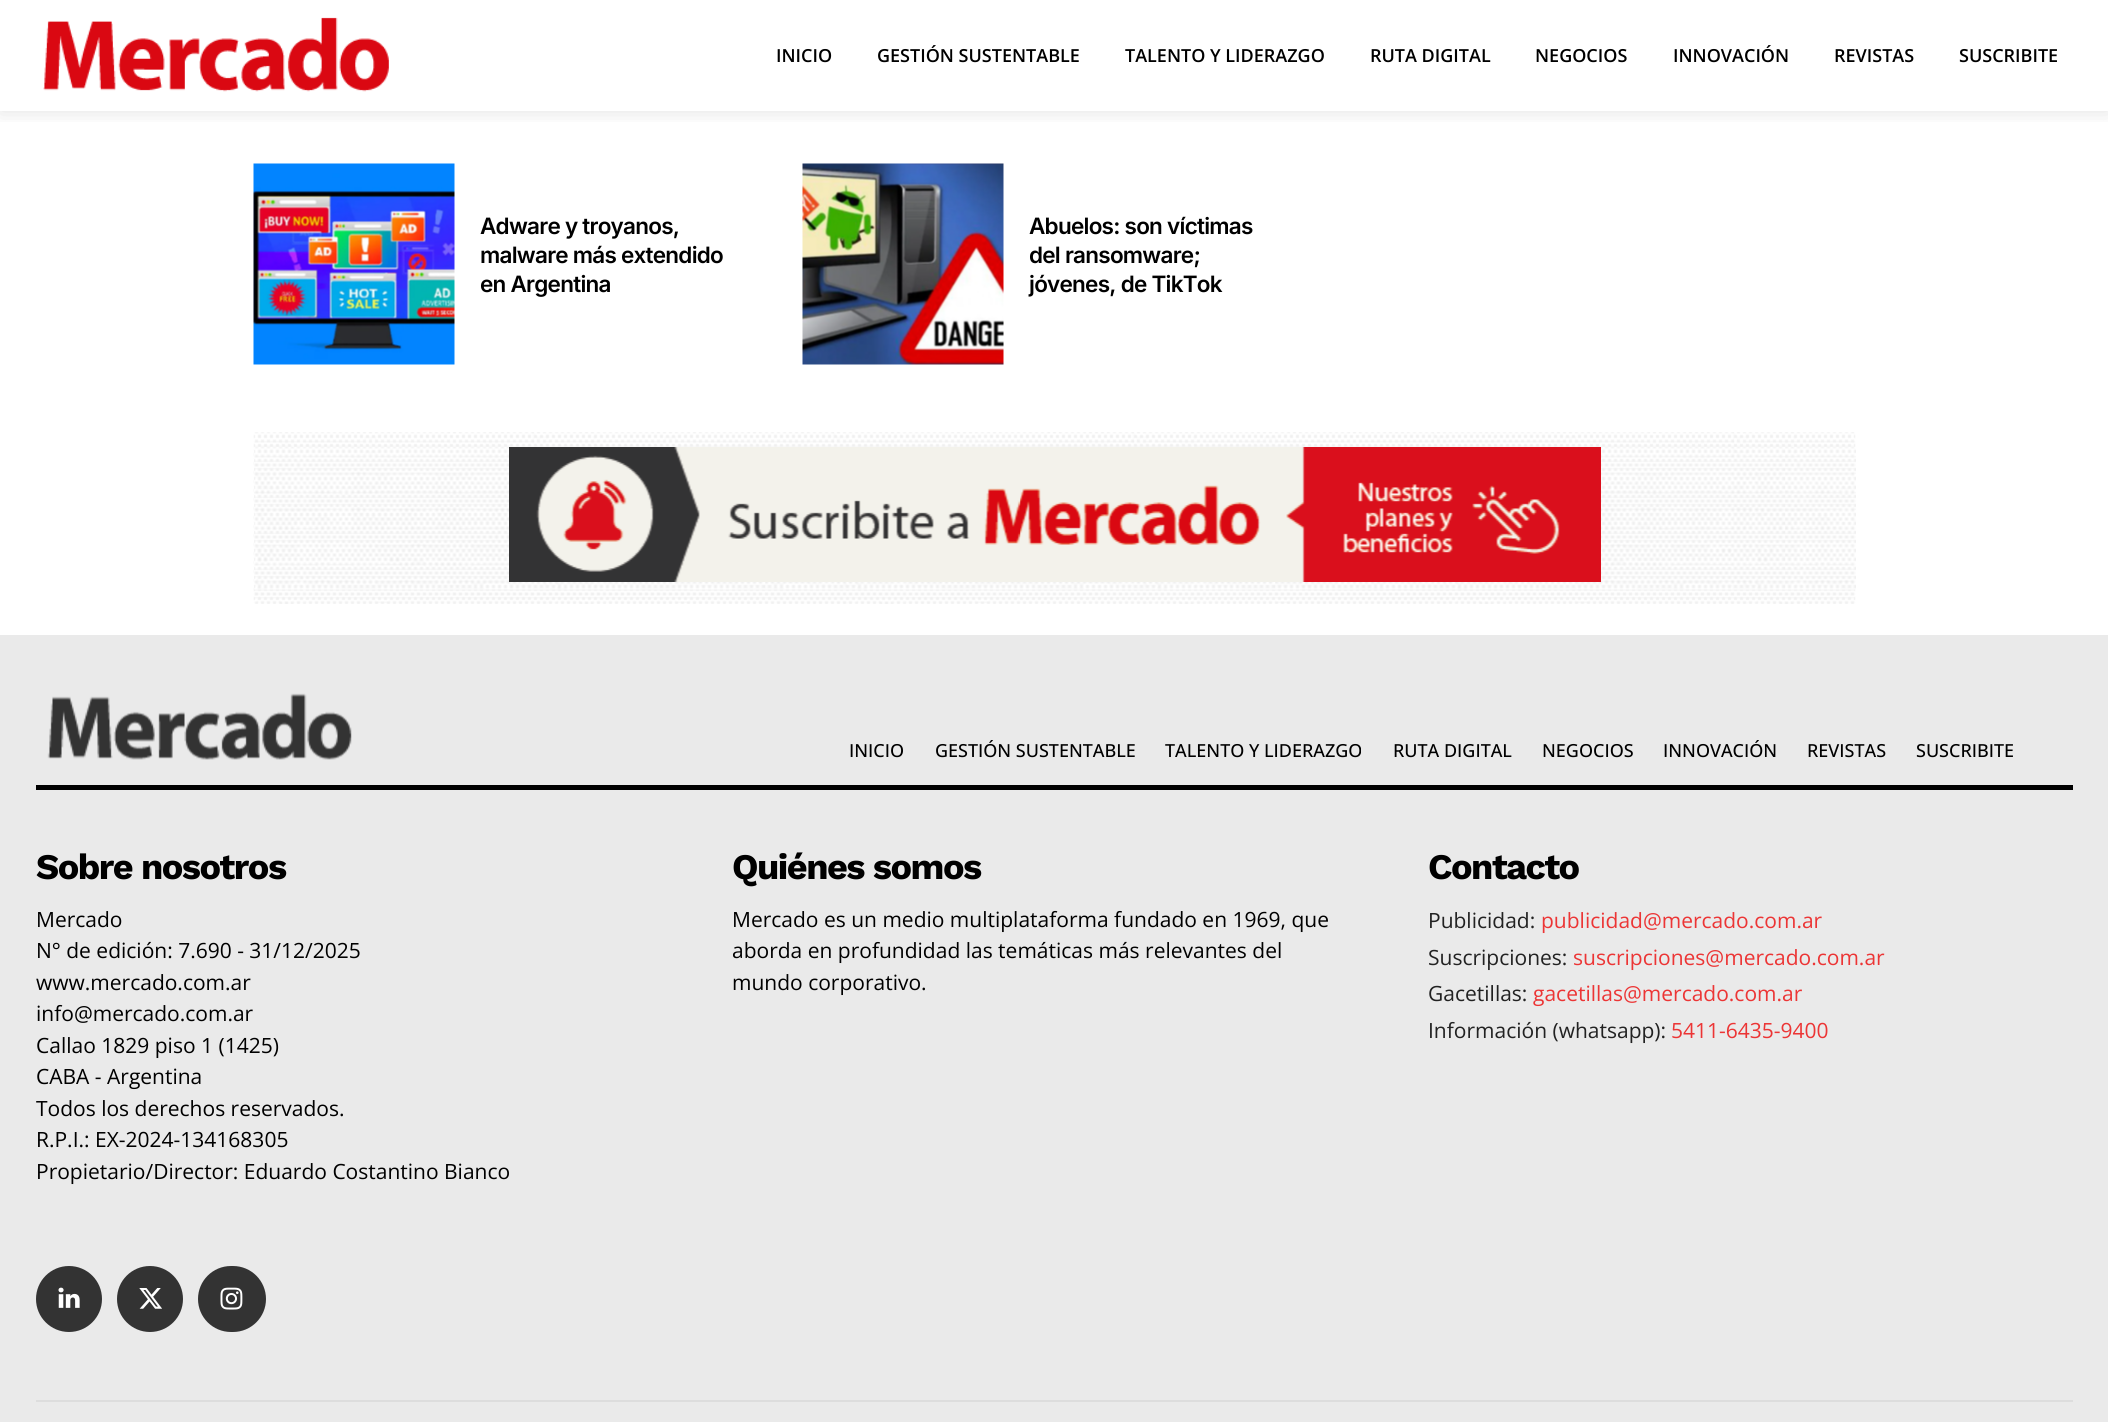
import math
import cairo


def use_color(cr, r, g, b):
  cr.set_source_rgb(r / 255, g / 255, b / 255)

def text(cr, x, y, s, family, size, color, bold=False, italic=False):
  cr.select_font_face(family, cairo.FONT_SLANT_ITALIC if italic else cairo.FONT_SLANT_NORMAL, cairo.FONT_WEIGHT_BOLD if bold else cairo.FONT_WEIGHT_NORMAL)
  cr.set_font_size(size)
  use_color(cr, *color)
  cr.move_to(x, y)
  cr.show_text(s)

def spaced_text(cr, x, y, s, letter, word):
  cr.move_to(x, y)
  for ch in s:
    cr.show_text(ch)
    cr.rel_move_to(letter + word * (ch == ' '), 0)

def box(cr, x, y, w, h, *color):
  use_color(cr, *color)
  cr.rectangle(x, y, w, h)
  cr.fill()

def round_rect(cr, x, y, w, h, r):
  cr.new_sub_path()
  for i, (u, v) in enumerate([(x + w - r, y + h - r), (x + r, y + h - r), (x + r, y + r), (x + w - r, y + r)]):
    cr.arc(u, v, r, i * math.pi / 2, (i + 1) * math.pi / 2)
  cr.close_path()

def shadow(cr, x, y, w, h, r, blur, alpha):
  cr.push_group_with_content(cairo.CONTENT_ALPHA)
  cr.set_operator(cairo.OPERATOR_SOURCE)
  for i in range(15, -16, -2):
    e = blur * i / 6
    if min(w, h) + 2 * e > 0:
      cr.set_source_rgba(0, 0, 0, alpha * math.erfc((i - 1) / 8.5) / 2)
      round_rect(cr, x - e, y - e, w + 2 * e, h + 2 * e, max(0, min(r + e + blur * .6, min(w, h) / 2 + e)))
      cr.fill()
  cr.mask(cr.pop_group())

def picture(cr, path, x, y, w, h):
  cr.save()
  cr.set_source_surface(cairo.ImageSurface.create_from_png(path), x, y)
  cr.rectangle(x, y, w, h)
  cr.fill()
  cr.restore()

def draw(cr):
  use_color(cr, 255, 255, 255)
  cr.paint()
  picture(cr, "img_01.png", 43, 17, 346, 75)
  cr.save()
  cr.rectangle(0, 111, 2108, 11)
  cr.clip()
  use_color(cr, 0, 0, 0)
  shadow(cr, 0, 0, 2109, 111, 0, 11, 0.12)
  cr.restore()
  picture(cr, "img_02.png", 253, 163, 202, 202)
  picture(cr, "img_03.png", 802, 163, 202, 202)
  picture(cr, "img_04.png", 253, 432, 1603, 172)
  picture(cr, "img_05.png", 254, 447, 1602, 143)
  picture(cr, "img_06.png", 509, 447, 1092, 135)
  box(cr, 0, 635, 2108, 787, 234, 234, 234)
  box(cr, 36, 785, 2037, 5, 0, 0, 0)
  picture(cr, "img_07.png", 47, 693, 305, 67)
  use_color(cr, 51, 51, 51)
  cr.arc(69, 1299, 33, 0, 2 * math.pi)
  cr.fill()
  picture(cr, "img_08.png", 58, 1287, 22, 21)
  cr.arc(150, 1299, 33, 0, 2 * math.pi)
  cr.fill()
  picture(cr, "img_09.png", 139, 1288, 23, 21)
  round_rect(cr, 198, 1266, 68, 66, 33)
  cr.fill()
  picture(cr, "img_10.png", 220, 1287, 23, 23)
  box(cr, 36, 1400, 2037, 2, 221, 221, 221)
  text(cr, 776, 62, "INICIO", "Open Sans SemiBold", 18, (0, 0, 0))
  text(cr, 877, 62, "GESTIÓN SUSTENTABLE", "Open Sans SemiBold", 18, (0, 0, 0))
  text(cr, 1125, 62, "TALENTO Y LIDERAZGO", "Open Sans SemiBold", 18, (0, 0, 0))
  text(cr, 1370, 62, "RUTA DIGITAL", "Open Sans SemiBold", 18, (0, 0, 0))
  text(cr, 1535, 62, "NEGOCIOS", "Open Sans SemiBold", 18, (0, 0, 0))
  text(cr, 1673, 62, "INNOVACIÓN", "Open Sans SemiBold", 18, (0, 0, 0))
  text(cr, 1834, 62, "REVISTAS", "Open Sans SemiBold", 18, (0, 0, 0))
  text(cr, 1959, 62, "SUSCRIBITE", "Open Sans SemiBold", 18, (0, 0, 0))
  cr.select_font_face("Inter SemiBold")
  cr.set_font_size(22.5)
  spaced_text(cr, 480, 234, "Adware y troyanos,", -0.75, 0)
  spaced_text(cr, 480, 263, "malware más extendido", -0.75, 0)
  spaced_text(cr, 480, 292, "en Argentina", -0.75, 0)
  spaced_text(cr, 1029, 234, "Abuelos: son víctimas", -0.75, 0)
  spaced_text(cr, 1029, 263, "del ransomware;", -0.75, 0)
  spaced_text(cr, 1029, 292, "jóvenes, de TikTok", -0.75, 0)
  text(cr, 849, 757, "INICIO", "Open Sans Medium", 18, (0, 0, 0))
  text(cr, 935, 757, "GESTIÓN SUSTENTABLE", "Open Sans Medium", 18, (0, 0, 0))
  text(cr, 1165, 757, "TALENTO Y LIDERAZGO", "Open Sans Medium", 18, (0, 0, 0))
  text(cr, 1393, 757, "RUTA DIGITAL", "Open Sans Medium", 18, (0, 0, 0))
  text(cr, 1542, 757, "NEGOCIOS", "Open Sans Medium", 18, (0, 0, 0))
  text(cr, 1663, 757, "INNOVACIÓN", "Open Sans Medium", 18, (0, 0, 0))
  text(cr, 1807, 757, "REVISTAS", "Open Sans Medium", 18, (0, 0, 0))
  text(cr, 1916, 757, "SUSCRIBITE", "Open Sans Medium", 18, (0, 0, 0))
  cr.select_font_face("Work Sans", cairo.FONT_SLANT_NORMAL, cairo.FONT_WEIGHT_BOLD)
  cr.set_font_size(36)
  spaced_text(cr, 36, 879, "Sobre nosotros", -1.5, 0)
  text(cr, 36, 927, "Mercado", "Open Sans", 21, (0, 0, 0))
  text(cr, 36, 958, "N° de edición: 7.690 - 31/12/2025", "Open Sans", 21, (0, 0, 0))
  text(cr, 36, 990, "www.mercado.com.ar", "Open Sans", 21, (0, 0, 0))
  text(cr, 36, 1021, "info@mercado.com.ar", "Open Sans", 21, (0, 0, 0))
  text(cr, 36, 1053, "Callao 1829 piso 1 (1425)", "Open Sans", 21, (0, 0, 0))
  text(cr, 36, 1084, "CABA - Argentina", "Open Sans", 21, (0, 0, 0))
  text(cr, 36, 1116, "Todos los derechos reservados.", "Open Sans", 21, (0, 0, 0))
  text(cr, 36, 1147, "R.P.I.: EX-2024-134168305", "Open Sans", 21, (0, 0, 0))
  text(cr, 36, 1179, "Propietario/Director: Eduardo Costantino Bianco", "Open Sans", 21, (0, 0, 0))
  cr.select_font_face("Work Sans", cairo.FONT_SLANT_NORMAL, cairo.FONT_WEIGHT_BOLD)
  cr.set_font_size(36)
  spaced_text(cr, 732, 879, "Quiénes somos", -1.5, 0)
  text(cr, 732, 927, "Mercado es un medio multiplataforma fundado en 1969, que", "Open Sans", 21, (0, 0, 0))
  text(cr, 732, 958, "aborda en profundidad las temáticas más relevantes del", "Open Sans", 21, (0, 0, 0))
  text(cr, 732, 990, "mundo corporativo.", "Open Sans", 21, (0, 0, 0))
  cr.select_font_face("Work Sans", cairo.FONT_SLANT_NORMAL, cairo.FONT_WEIGHT_BOLD)
  cr.set_font_size(36)
  spaced_text(cr, 1428, 879, "Contacto", -1.5, 0)
  text(cr, 1428, 928, "Publicidad:", "Open Sans", 21, (34, 34, 34))
  text(cr, 1541, 928, "publicidad@mercado.com.ar", "Open Sans", 21, (236, 53, 53))
  text(cr, 1428, 965, "Suscripciones:", "Open Sans", 21, (34, 34, 34))
  text(cr, 1573, 965, "suscripciones@mercado.com.ar", "Open Sans", 21, (236, 53, 53))
  text(cr, 1428, 1001, "Gacetillas:", "Open Sans", 21, (34, 34, 34))
  text(cr, 1533, 1001, "gacetillas@mercado.com.ar", "Open Sans", 21, (236, 53, 53))
  text(cr, 1428, 1038, "Información (whatsapp):", "Open Sans", 21, (34, 34, 34))
  text(cr, 1671, 1038, "5411-6435-9400", "Open Sans", 21, (236, 53, 53))


surface = cairo.ImageSurface(cairo.FORMAT_RGB24, 2108, 1422)
cr = cairo.Context(surface)
options = cairo.FontOptions()
options.set_hint_metrics(cairo.HINT_METRICS_OFF)
options.set_hint_style(cairo.HINT_STYLE_NONE)
cr.set_font_options(options)
cr.set_miter_limit(4)
draw(cr)
surface.write_to_png("out.png")
